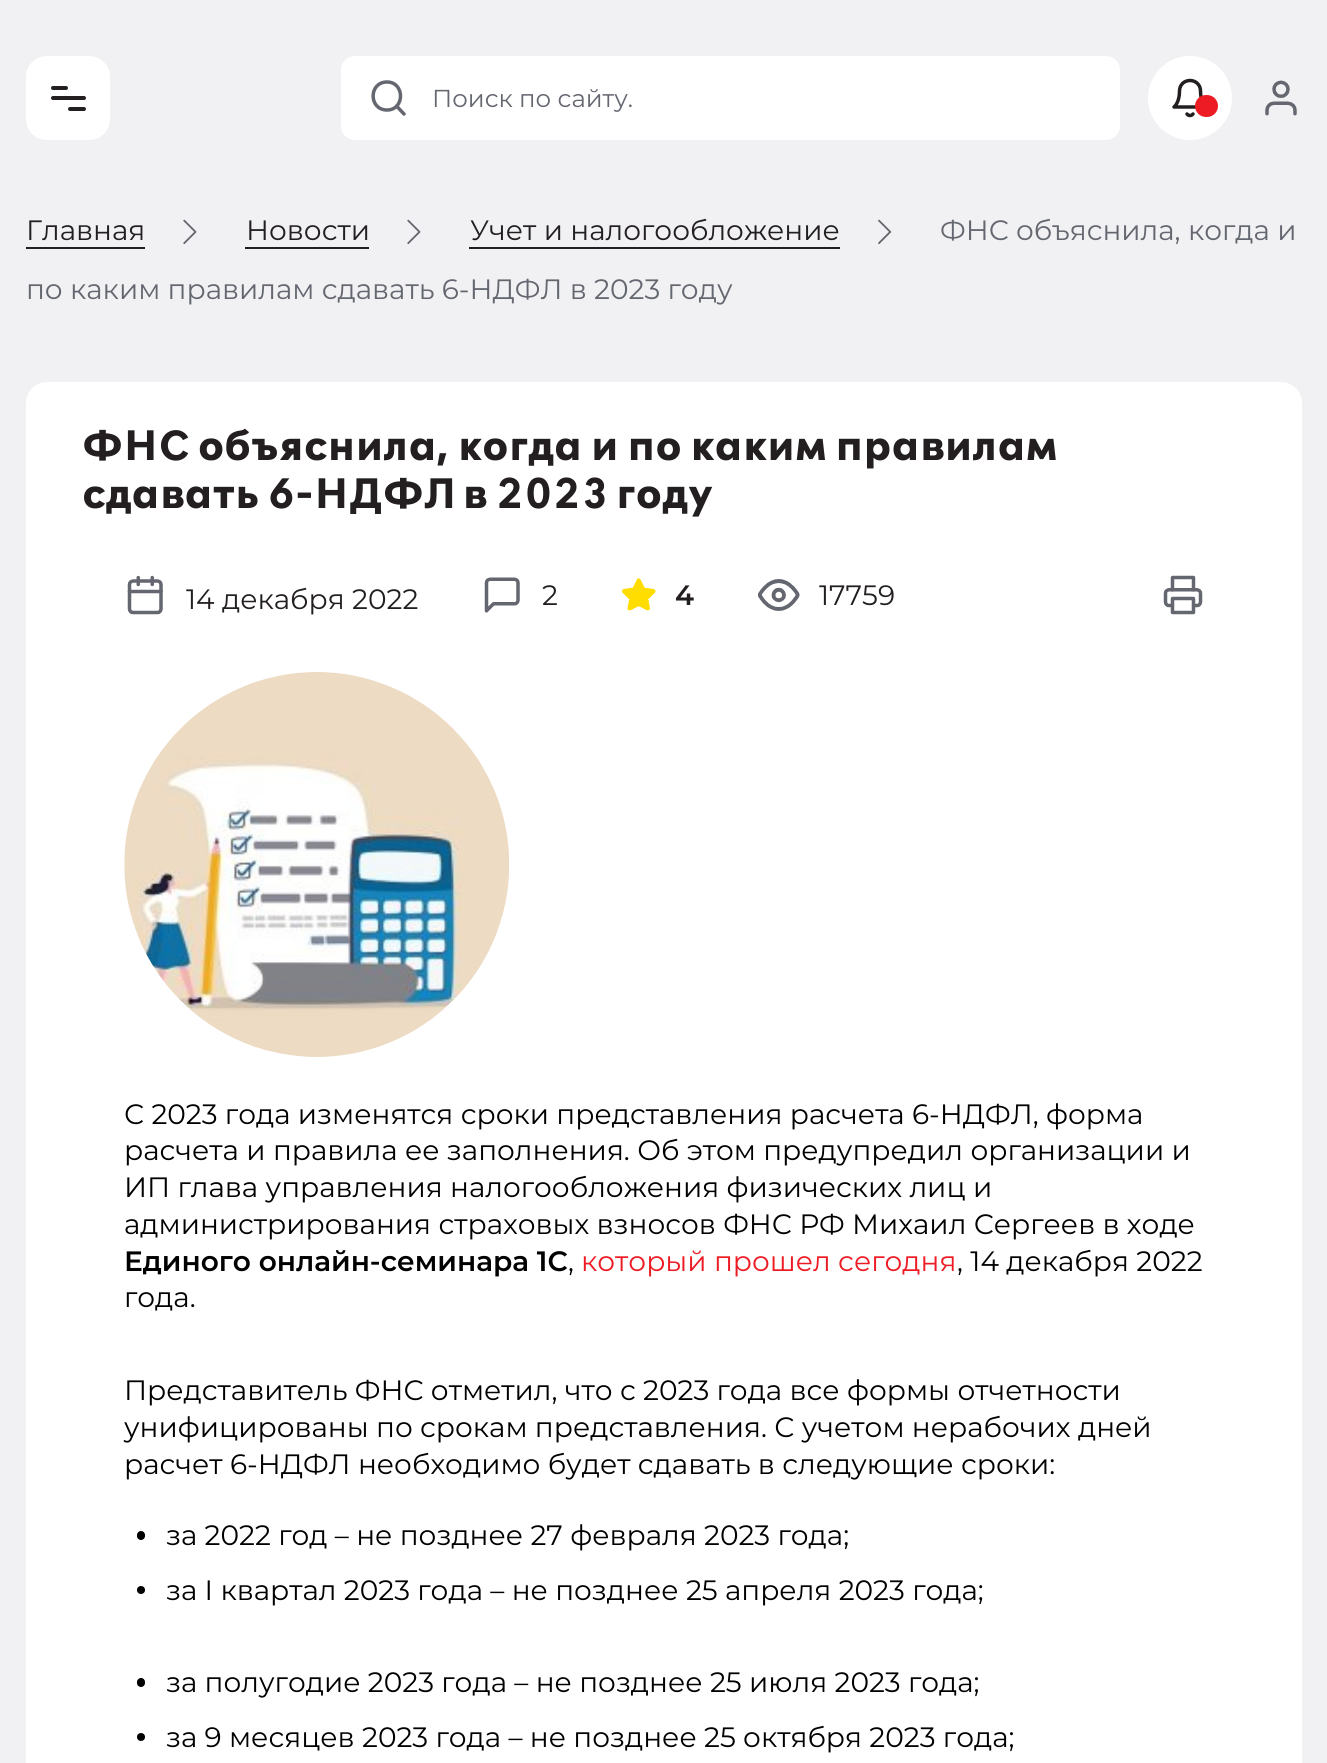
import math
import cairo


def use_color(cr, r, g, b):
  cr.set_source_rgb(r / 255, g / 255, b / 255)

def text(cr, x, y, s, family, size, color, bold=False, italic=False):
  cr.select_font_face(family, cairo.FONT_SLANT_ITALIC if italic else cairo.FONT_SLANT_NORMAL, cairo.FONT_WEIGHT_BOLD if bold else cairo.FONT_WEIGHT_NORMAL)
  cr.set_font_size(size)
  use_color(cr, *color)
  cr.move_to(x, y)
  cr.show_text(s)

def box(cr, x, y, w, h, *color):
  use_color(cr, *color)
  cr.rectangle(x, y, w, h)
  cr.fill()

def round_rect(cr, x, y, w, h, r):
  cr.new_sub_path()
  for i, (u, v) in enumerate([(x + w - r, y + h - r), (x + r, y + h - r), (x + r, y + r), (x + w - r, y + r)]):
    cr.arc(u, v, r, i * math.pi / 2, (i + 1) * math.pi / 2)
  cr.close_path()

def picture(cr, path, x, y, w, h):
  cr.save()
  cr.set_source_surface(cairo.ImageSurface.create_from_png(path), x, y)
  cr.rectangle(x, y, w, h)
  cr.fill()
  cr.restore()

def draw(cr):
  use_color(cr, 241, 241, 243)
  cr.paint()
  use_color(cr, 255, 255, 255)
  round_rect(cr, 26, 56, 84, 84, 21)
  cr.fill()
  use_color(cr, 35, 31, 32)
  round_rect(cr, 51, 96, 35, 4, 2)
  cr.fill()
  round_rect(cr, 51, 86, 17, 4, 2)
  cr.fill()
  round_rect(cr, 68, 107, 18, 4, 2)
  cr.fill()
  use_color(cr, 255, 255, 255)
  round_rect(cr, 341, 56, 779, 84, 14)
  cr.fill()
  cr.new_path()
  cr.move_to(387, 110)
  cr.curve_to(405, 110, 405, 82, 387, 82)
  cr.curve_to(368.5, 82, 368.5, 110, 387, 110)
  cr.close_path()
  cr.move_to(404, 114)
  cr.line_to(396.5, 106)
  use_color(cr, 100, 103, 112)
  cr.set_line_width(3.5)
  cr.set_line_cap(cairo.LINE_CAP_ROUND)
  cr.set_line_join(cairo.LINE_JOIN_ROUND)
  cr.stroke()
  use_color(cr, 255, 255, 255)
  cr.arc(1190, 98, 42, 0, 2 * math.pi)
  cr.fill()
  cr.new_path()
  cr.move_to(1200.5, 91)
  cr.curve_to(1200.5, 85, 1196, 80.5, 1190, 80.5)
  cr.curve_to(1184, 80.5, 1179.5, 85, 1179.5, 91)
  cr.curve_to(1179.5, 103, 1174, 107, 1174, 107)
  cr.line_to(1206, 107)
  cr.curve_to(1206, 107, 1200.5, 103, 1200.5, 91)
  cr.close_path()
  cr.move_to(1193, 114)
  cr.curve_to(1191.5, 116, 1188.5, 116, 1187, 114)
  use_color(cr, 35, 31, 32)
  cr.stroke()
  use_color(cr, 237, 28, 36)
  round_rect(cr, 1195, 95, 23, 22, 11)
  cr.fill()
  picture(cr, "img_01.png", 1265, 80, 32, 36)
  box(cr, 26, 247, 119, 2, 35, 31, 32)
  picture(cr, "img_02.png", 183, 219, 14, 25)
  box(cr, 245, 247, 124, 2, 35, 31, 32)
  picture(cr, "img_02.png", 407, 219, 14, 25)
  box(cr, 469, 247, 371, 2, 35, 31, 32)
  picture(cr, "img_03.png", 878, 219, 14, 25)
  use_color(cr, 255, 255, 255)
  round_rect(cr, 26, 382, 1276, 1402, 21)
  cr.fill()
  picture(cr, "img_04.png", 127, 575, 36, 40)
  picture(cr, "img_05.png", 484, 577, 36, 36)
  picture(cr, "img_06.png", 621, 578, 35, 33)
  picture(cr, "img_07.png", 758, 579, 42, 32)
  picture(cr, "img_08.png", 1163, 575, 40, 40)
  picture(cr, "img_09.png", 124, 672, 386, 385)
  use_color(cr, 0, 0, 0)
  round_rect(cr, 137, 1531, 8, 9, 4)
  cr.fill()
  cr.arc(141, 1590, 4, 0, 2 * math.pi)
  cr.fill()
  round_rect(cr, 137, 1678, 8, 9, 4)
  cr.fill()
  cr.arc(141, 1737, 4, 0, 2 * math.pi)
  cr.fill()
  text(cr, 432, 107, "Поиск по сайту.", "Montserrat", 24.5, (100, 103, 112))
  text(cr, 26, 240, "Главная", "Montserrat", 28, (35, 31, 32))
  text(cr, 246, 240, "Новости", "Montserrat", 28, (35, 31, 32))
  text(cr, 470, 240, "Учет и налогообложение", "Montserrat", 28, (35, 31, 32))
  text(cr, 940, 240, "ФНС объяснила, когда и", "Montserrat", 28, (100, 103, 112))
  text(cr, 26, 299, "по каким правилам сдавать 6-НДФЛ в 2023 году", "Montserrat", 28, (100, 103, 112))
  text(cr, 82, 460, "ФНС объяснила, когда и по каким правилам", "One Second", 49, (35, 31, 32), bold=True)
  text(cr, 82, 508, "сдавать 6-НДФЛ в 2023 году", "One Second", 49, (35, 31, 32), bold=True)
  text(cr, 186, 609, "14 декабря 2022", "Montserrat", 28, (35, 31, 32))
  text(cr, 542, 605, "2", "Montserrat", 28, (35, 31, 32))
  text(cr, 675, 605, "4", "Montserrat SemiBold", 28, (35, 31, 32))
  text(cr, 819, 605, "17759", "Montserrat", 28, (35, 31, 32))
  text(cr, 124, 1124, "С 2023 года изменятся сроки представления расчета 6-НДФЛ, форма", "Montserrat", 28, (0, 0, 0))
  text(cr, 124, 1160, "расчета и правила ее заполнения. Об этом предупредил организации и", "Montserrat", 28, (0, 0, 0))
  text(cr, 124, 1197, "ИП глава управления налогообложения физических лиц и", "Montserrat", 28, (0, 0, 0))
  text(cr, 124, 1234, "администрирования страховых взносов ФНС РФ Михаил Сергеев в ходе", "Montserrat", 28, (0, 0, 0))
  text(cr, 124, 1271, "Единого онлайн-семинара 1С", "Montserrat SemiBold", 28, (0, 0, 0))
  text(cr, 568, 1271, ",", "Montserrat", 28, (0, 0, 0))
  text(cr, 581, 1271, "который прошел сегодня", "Montserrat", 28, (237, 28, 36))
  text(cr, 957, 1271, ", 14 декабря 2022", "Montserrat", 28, (0, 0, 0))
  text(cr, 124, 1307, "года.", "Montserrat", 28, (0, 0, 0))
  text(cr, 124, 1400, "Представитель ФНС отметил, что с 2023 года все формы отчетности", "Montserrat", 28, (0, 0, 0))
  text(cr, 124, 1437, "унифицированы по срокам представления. С учетом нерабочих дней", "Montserrat", 28, (0, 0, 0))
  text(cr, 124, 1474, "расчет 6-НДФЛ необходимо будет сдавать в следующие сроки:", "Montserrat", 28, (0, 0, 0))
  text(cr, 166, 1545, "за 2022 год – не позднее 27 февраля 2023 года;", "Montserrat", 28, (0, 0, 0))
  text(cr, 166, 1600, "за I квартал 2023 года – не позднее 25 апреля 2023 года;", "Montserrat", 28, (0, 0, 0))
  text(cr, 166, 1692, "за полугодие 2023 года – не позднее 25 июля 2023 года;", "Montserrat", 28, (0, 0, 0))
  text(cr, 166, 1747, "за 9 месяцев 2023 года – не позднее 25 октября 2023 года;", "Montserrat", 28, (0, 0, 0))


surface = cairo.ImageSurface(cairo.FORMAT_RGB24, 1327, 1763)
cr = cairo.Context(surface)
options = cairo.FontOptions()
options.set_hint_metrics(cairo.HINT_METRICS_OFF)
options.set_hint_style(cairo.HINT_STYLE_NONE)
cr.set_font_options(options)
cr.set_miter_limit(4)
draw(cr)
surface.write_to_png("out.png")
